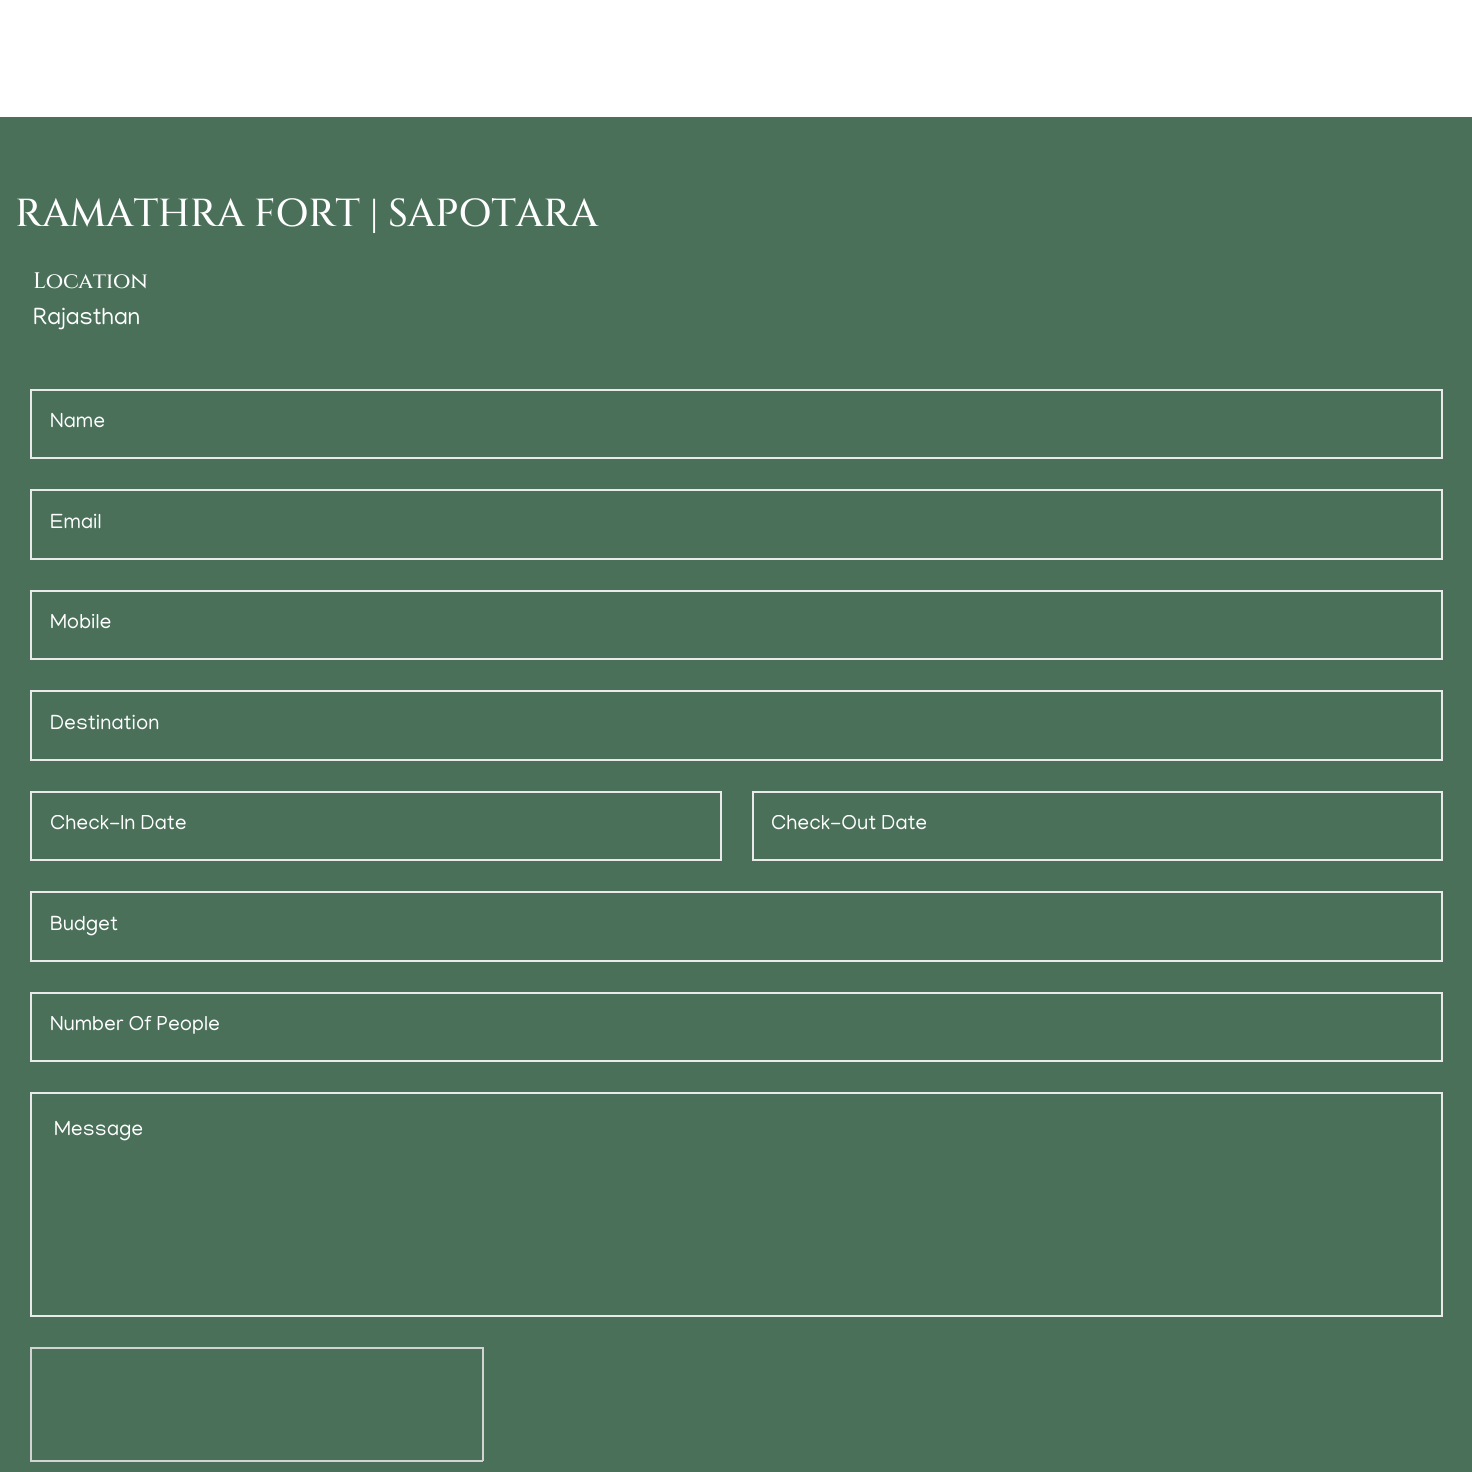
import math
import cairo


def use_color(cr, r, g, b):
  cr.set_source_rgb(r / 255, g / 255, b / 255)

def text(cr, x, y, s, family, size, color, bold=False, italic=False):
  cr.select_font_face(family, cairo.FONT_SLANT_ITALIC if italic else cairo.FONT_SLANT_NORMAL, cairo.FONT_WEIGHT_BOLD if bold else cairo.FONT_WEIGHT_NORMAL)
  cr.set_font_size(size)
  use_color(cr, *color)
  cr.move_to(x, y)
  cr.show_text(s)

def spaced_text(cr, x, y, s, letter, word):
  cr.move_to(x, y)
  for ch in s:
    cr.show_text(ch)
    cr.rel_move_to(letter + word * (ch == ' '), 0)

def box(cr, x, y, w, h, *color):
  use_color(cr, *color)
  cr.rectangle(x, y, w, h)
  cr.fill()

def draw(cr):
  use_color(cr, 255, 255, 255)
  cr.paint()
  box(cr, 0, 117, 1472, 1355, 74, 112, 89)
  cr.rectangle(31, 390, 1411, 68)
  use_color(cr, 234, 234, 234)
  cr.stroke()
  cr.rectangle(31, 490, 1411, 69)
  cr.stroke()
  cr.rectangle(31, 591, 1411, 68)
  cr.stroke()
  cr.rectangle(31, 691, 1411, 69)
  cr.stroke()
  cr.rectangle(31, 792, 690, 68)
  cr.stroke()
  cr.rectangle(753, 792, 689, 68)
  cr.stroke()
  cr.rectangle(31, 892, 1411, 69)
  cr.stroke()
  cr.rectangle(31, 993, 1411, 68)
  cr.stroke()
  cr.rectangle(31, 1093, 1411, 223)
  cr.stroke()
  box(cr, 30, 1347, 2, 114, 211, 211, 211)
  box(cr, 30, 1347, 453, 2, 211, 211, 211)
  box(cr, 30, 1460, 453, 2, 211, 211, 211)
  box(cr, 482, 1347, 2, 114, 211, 211, 211)
  cr.select_font_face("Cinzel Medium")
  cr.set_font_size(39)
  use_color(cr, 255, 255, 255)
  spaced_text(cr, 15, 226, "RAMATHRA FORT | SAPOTARA", -0.3, 0)
  cr.set_font_size(22.5)
  spaced_text(cr, 33, 288, "Location", -0.3, 0)
  cr.select_font_face("Manjari")
  cr.set_font_size(24)
  spaced_text(cr, 33, 324, "Rajasthan", -0.3, 0)
  text(cr, 50, 427, "Name", "Manjari", 21, (255, 255, 255))
  text(cr, 50, 528, "Email", "Manjari", 21, (255, 255, 255))
  cr.save()
  cr.rectangle(50, 614, 1374, 22)
  cr.clip()
  text(cr, 50, 628, "Mobile", "Manjari", 21, (255, 255, 255))
  cr.restore()
  text(cr, 50, 729, "Destination", "Manjari", 21, (255, 255, 255))
  cr.save()
  cr.rectangle(50, 815, 652, 22)
  cr.clip()
  text(cr, 50, 829, "Check-In Date", "Manjari", 21, (255, 255, 255))
  cr.restore()
  cr.save()
  cr.rectangle(771, 815, 653, 22)
  cr.clip()
  text(cr, 771, 829, "Check-Out Date", "Manjari", 21, (255, 255, 255))
  cr.restore()
  text(cr, 50, 930, "Budget", "Manjari", 21, (255, 255, 255))
  cr.save()
  cr.rectangle(50, 1016, 1374, 22)
  cr.clip()
  text(cr, 50, 1030, "Number Of People", "Manjari", 21, (255, 255, 255))
  cr.restore()
  text(cr, 54, 1135, "Message", "Manjari", 21, (255, 255, 255))


surface = cairo.ImageSurface(cairo.FORMAT_RGB24, 1472, 1472)
cr = cairo.Context(surface)
options = cairo.FontOptions()
options.set_hint_metrics(cairo.HINT_METRICS_OFF)
options.set_hint_style(cairo.HINT_STYLE_NONE)
cr.set_font_options(options)
cr.set_miter_limit(4)
draw(cr)
surface.write_to_png("out.png")
